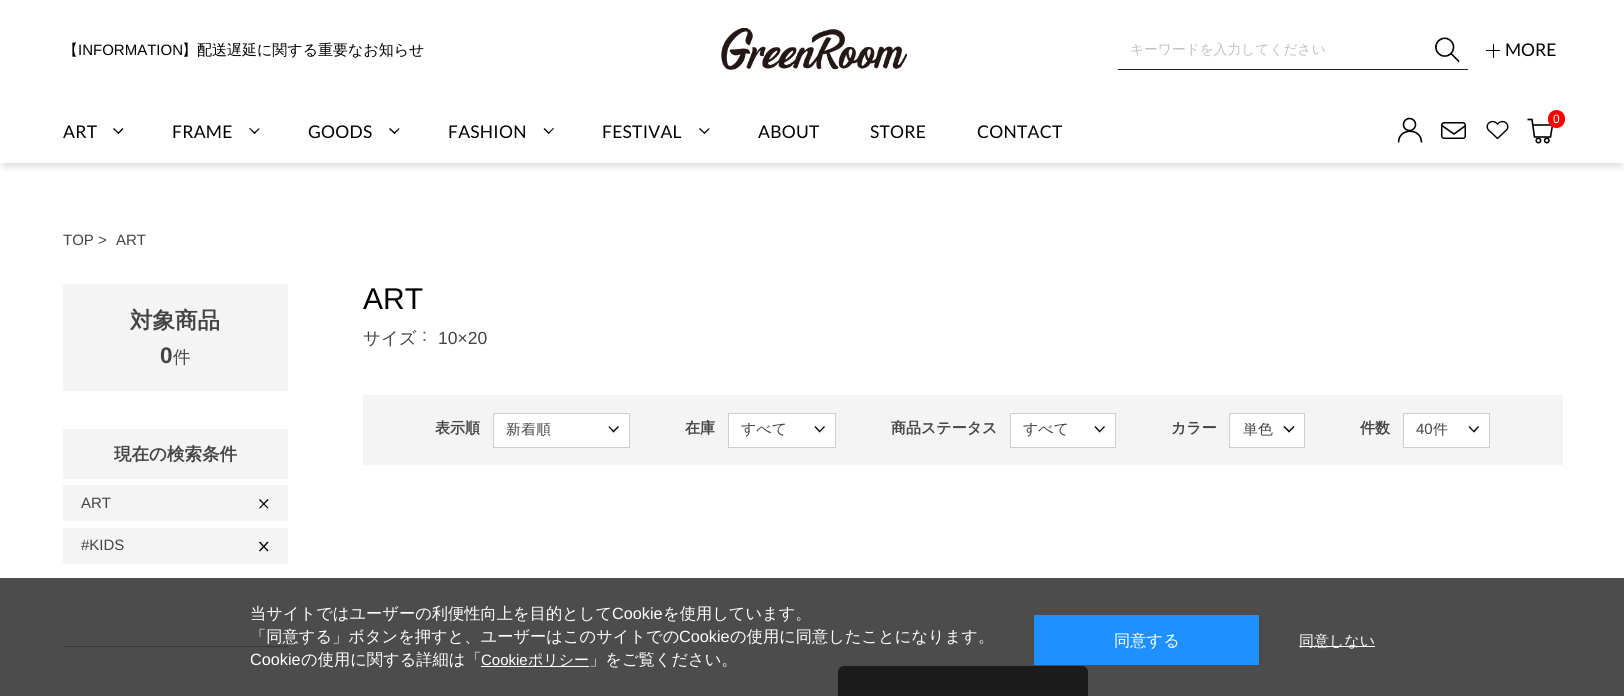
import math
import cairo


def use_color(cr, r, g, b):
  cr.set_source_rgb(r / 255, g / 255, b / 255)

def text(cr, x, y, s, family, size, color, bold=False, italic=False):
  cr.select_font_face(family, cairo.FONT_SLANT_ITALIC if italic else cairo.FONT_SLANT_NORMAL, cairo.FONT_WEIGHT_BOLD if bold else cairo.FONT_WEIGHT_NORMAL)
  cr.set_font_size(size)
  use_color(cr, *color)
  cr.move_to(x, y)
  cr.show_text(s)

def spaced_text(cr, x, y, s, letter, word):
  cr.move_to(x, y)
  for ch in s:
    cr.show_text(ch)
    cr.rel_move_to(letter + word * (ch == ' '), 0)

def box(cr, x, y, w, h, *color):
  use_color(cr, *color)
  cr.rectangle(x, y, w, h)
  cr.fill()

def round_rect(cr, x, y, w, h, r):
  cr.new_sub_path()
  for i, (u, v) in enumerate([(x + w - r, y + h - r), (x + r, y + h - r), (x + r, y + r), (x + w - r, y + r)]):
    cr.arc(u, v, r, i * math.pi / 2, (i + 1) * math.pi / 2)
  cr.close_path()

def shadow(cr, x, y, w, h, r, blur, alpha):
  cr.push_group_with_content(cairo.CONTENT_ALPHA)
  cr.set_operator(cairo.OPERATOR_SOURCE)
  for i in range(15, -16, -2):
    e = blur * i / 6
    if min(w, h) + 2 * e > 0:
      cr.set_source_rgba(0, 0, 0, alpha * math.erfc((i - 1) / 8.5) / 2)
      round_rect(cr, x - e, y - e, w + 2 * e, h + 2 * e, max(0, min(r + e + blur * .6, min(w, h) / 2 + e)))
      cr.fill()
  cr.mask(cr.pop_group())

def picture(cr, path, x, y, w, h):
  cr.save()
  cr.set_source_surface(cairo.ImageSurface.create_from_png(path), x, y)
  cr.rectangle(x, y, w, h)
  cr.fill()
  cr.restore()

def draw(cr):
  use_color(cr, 255, 255, 255)
  cr.paint()
  use_color(cr, 0, 0, 0)
  shadow(cr, 4, 11, 1617, 155, 0, 4, 0.15)
  box(cr, 0, 5, 1624, 158, 255, 255, 255)
  picture(cr, "img_01.png", 721, 28, 186, 42)
  box(cr, 1118, 69, 350, 1, 34, 34, 34)
  picture(cr, "img_02.png", 1435, 37, 25, 26)
  box(cr, 1493, 44, 1, 14, 0, 0, 0)
  box(cr, 1486, 50, 14, 1, 0, 0, 0)
  cr.arc(1409.5, 124.5, 6, 0, 2 * math.pi)
  cr.set_line_width(1.6)
  cr.stroke()
  cr.save()
  cr.rectangle(1398, 115, 25, 30)
  cr.clip()
  cr.new_path()
  cr.move_to(1398.5, 142.5)
  cr.curve_to(1398.5, 127.5, 1421.5, 127.5, 1421.5, 142.5)
  cr.stroke()
  cr.restore()
  cr.new_path()
  cr.move_to(1465, 126)
  cr.line_to(1454, 134)
  cr.line_to(1442.5, 126)
  cr.set_line_cap(cairo.LINE_CAP_ROUND)
  cr.set_line_join(cairo.LINE_JOIN_ROUND)
  cr.stroke()
  round_rect(cr, 1441.75, 122.75, 23.5, 15.5, 2.25)
  cr.set_line_width(1.5)
  cr.set_line_cap(cairo.LINE_CAP_BUTT)
  cr.set_line_join(cairo.LINE_JOIN_MITER)
  cr.stroke()
  picture(cr, "img_03.png", 1486, 120, 23, 20)
  cr.new_path()
  cr.move_to(1527.5, 119.5)
  cr.line_to(1532, 119.5)
  cr.line_to(1534.5, 137)
  cr.line_to(1550.5, 137)
  cr.line_to(1552.5, 125)
  cr.line_to(1532.5, 125)
  cr.set_line_width(1.6)
  cr.stroke()
  cr.arc(1538.4, 140.5, 2.2, 0, 2 * math.pi)
  cr.stroke()
  cr.arc(1546.8, 140.5, 2.2, 0, 2 * math.pi)
  cr.stroke()
  use_color(cr, 255, 0, 0)
  round_rect(cr, 1548, 110, 17, 18, 8.5)
  cr.fill()
  use_color(cr, 0, 0, 0)
  cr.new_path()
  cr.move_to(123.5, 129)
  cr.line_to(118.5, 134)
  cr.line_to(117.5, 133)
  cr.line_to(122.5, 128)
  cr.close_path()
  cr.fill()
  cr.new_path()
  cr.move_to(119, 133)
  cr.line_to(118.5, 134)
  cr.line_to(113, 129)
  cr.line_to(114, 128)
  cr.close_path()
  cr.fill()
  cr.new_path()
  cr.move_to(259.5, 129)
  cr.line_to(254.5, 134)
  cr.line_to(253.5, 133)
  cr.line_to(259, 128)
  cr.close_path()
  cr.fill()
  cr.new_path()
  cr.move_to(255.5, 133)
  cr.line_to(254.5, 134)
  cr.line_to(249, 128.5)
  cr.line_to(250, 128)
  cr.close_path()
  cr.fill()
  cr.new_path()
  cr.move_to(399.5, 129)
  cr.line_to(394.5, 134)
  cr.line_to(393.5, 133)
  cr.line_to(399, 128)
  cr.close_path()
  cr.fill()
  cr.new_path()
  cr.move_to(395.5, 133)
  cr.line_to(394.5, 134)
  cr.line_to(389, 129)
  cr.line_to(390, 128)
  cr.close_path()
  cr.fill()
  cr.new_path()
  cr.move_to(554, 128.5)
  cr.line_to(548.5, 134)
  cr.line_to(548, 133)
  cr.line_to(553, 128)
  cr.close_path()
  cr.fill()
  cr.new_path()
  cr.move_to(549.5, 133)
  cr.line_to(548.5, 134)
  cr.line_to(543.5, 129)
  cr.line_to(544.5, 128)
  cr.close_path()
  cr.fill()
  cr.new_path()
  cr.move_to(709.5, 129)
  cr.line_to(704.5, 134)
  cr.line_to(703.5, 133)
  cr.line_to(709, 128)
  cr.close_path()
  cr.fill()
  cr.new_path()
  cr.move_to(705, 133)
  cr.line_to(704.5, 134)
  cr.line_to(699, 129)
  cr.line_to(700, 128)
  cr.close_path()
  cr.fill()
  box(cr, 63, 284, 225, 107, 244, 244, 244)
  box(cr, 63, 429, 225, 50, 244, 244, 244)
  box(cr, 63, 485, 225, 36, 244, 244, 244)
  use_color(cr, 0, 0, 0)
  cr.new_path()
  cr.move_to(260, 499)
  cr.line_to(268.5, 508)
  cr.line_to(267.5, 508.5)
  cr.line_to(259, 500)
  cr.close_path()
  cr.fill()
  cr.new_path()
  cr.move_to(259, 508)
  cr.line_to(267.5, 499)
  cr.line_to(268.5, 500)
  cr.line_to(260, 508.5)
  cr.close_path()
  cr.fill()
  box(cr, 63, 528, 225, 36, 244, 244, 244)
  use_color(cr, 0, 0, 0)
  cr.new_path()
  cr.move_to(260, 541.5)
  cr.line_to(268.5, 550.5)
  cr.line_to(267.5, 551.5)
  cr.line_to(259, 542.5)
  cr.close_path()
  cr.fill()
  cr.new_path()
  cr.move_to(259, 550.5)
  cr.line_to(267.5, 541.5)
  cr.line_to(268.5, 542.5)
  cr.line_to(260, 551.5)
  cr.close_path()
  cr.fill()
  box(cr, 63, 646, 225, 1, 177, 177, 177)
  box(cr, 363, 395, 1200, 70, 244, 244, 244)
  use_color(cr, 255, 255, 255)
  cr.rectangle(493.5, 413.5, 136, 34)
  cr.fill_preserve()
  use_color(cr, 206, 206, 206)
  cr.set_line_width(1)
  cr.stroke()
  use_color(cr, 0, 0, 0)
  cr.new_path()
  cr.move_to(619, 427)
  cr.line_to(613.5, 432.5)
  cr.line_to(612.5, 431.5)
  cr.line_to(618, 426)
  cr.close_path()
  cr.fill()
  cr.new_path()
  cr.move_to(614.5, 431.5)
  cr.line_to(613.5, 432.5)
  cr.line_to(608.5, 427)
  cr.line_to(609, 426)
  cr.close_path()
  cr.fill()
  use_color(cr, 255, 255, 255)
  cr.rectangle(728.5, 413.5, 107, 34)
  cr.fill_preserve()
  use_color(cr, 206, 206, 206)
  cr.stroke()
  use_color(cr, 0, 0, 0)
  cr.new_path()
  cr.move_to(825, 427)
  cr.line_to(819.5, 432.5)
  cr.line_to(819, 431.5)
  cr.line_to(824, 426)
  cr.close_path()
  cr.fill()
  cr.new_path()
  cr.move_to(820.5, 431.5)
  cr.line_to(819.5, 432.5)
  cr.line_to(814.5, 427)
  cr.line_to(815.5, 426)
  cr.close_path()
  cr.fill()
  use_color(cr, 255, 255, 255)
  cr.rectangle(1010.5, 413.5, 105, 34)
  cr.fill_preserve()
  use_color(cr, 206, 206, 206)
  cr.stroke()
  use_color(cr, 0, 0, 0)
  cr.new_path()
  cr.move_to(1105, 427)
  cr.line_to(1099.5, 432.5)
  cr.line_to(1099, 431.5)
  cr.line_to(1104, 426)
  cr.close_path()
  cr.fill()
  cr.new_path()
  cr.move_to(1100.5, 431.5)
  cr.line_to(1099.5, 432.5)
  cr.line_to(1094.5, 427)
  cr.line_to(1095.5, 426)
  cr.close_path()
  cr.fill()
  use_color(cr, 255, 255, 255)
  cr.rectangle(1229.5, 413.5, 75, 34)
  cr.fill_preserve()
  use_color(cr, 206, 206, 206)
  cr.stroke()
  use_color(cr, 0, 0, 0)
  cr.new_path()
  cr.move_to(1294.5, 427)
  cr.line_to(1289, 432.5)
  cr.line_to(1288, 431.5)
  cr.line_to(1293.5, 426)
  cr.close_path()
  cr.fill()
  cr.new_path()
  cr.move_to(1290, 431.5)
  cr.line_to(1289, 432.5)
  cr.line_to(1283.5, 427)
  cr.line_to(1284.5, 426)
  cr.close_path()
  cr.fill()
  use_color(cr, 255, 255, 255)
  cr.rectangle(1403.5, 413.5, 86, 34)
  cr.fill_preserve()
  use_color(cr, 206, 206, 206)
  cr.stroke()
  use_color(cr, 0, 0, 0)
  cr.new_path()
  cr.move_to(1479, 427)
  cr.line_to(1474, 432.5)
  cr.line_to(1473, 431.5)
  cr.line_to(1478, 426)
  cr.close_path()
  cr.fill()
  cr.new_path()
  cr.move_to(1474.5, 431.5)
  cr.line_to(1474, 432.5)
  cr.line_to(1468.5, 427)
  cr.line_to(1469.5, 426)
  cr.close_path()
  cr.fill()
  use_color(cr, 90, 90, 90)
  round_rect(cr, 838, 666, 250, 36, 6)
  cr.fill()
  cr.set_source_rgba(0, 0, 0, 0.7)
  cr.rectangle(0, 578, 1624, 118)
  cr.fill()
  box(cr, 481, 666, 108, 1, 255, 255, 255)
  box(cr, 1034, 615, 225, 50, 30, 144, 255)
  box(cr, 1299, 646, 76, 1, 255, 255, 255)
  text(cr, 63, 55, "【", "WenQuanYi Zen Hei Medium", 15, (0, 0, 0))
  text(cr, 78, 55, "INFORMATION", "Liberation Sans", 15, (0, 0, 0))
  text(cr, 182, 55, "】配送遅延に関する重要なお知らせ", "WenQuanYi Zen Hei Medium", 15, (0, 0, 0))
  text(cr, 1130, 54, "キーワードを入力してください", "WenQuanYi Zen Hei Medium", 13.75, (192, 192, 192))
  text(cr, 1505, 56, "MORE", "Lato", 17.5, (0, 0, 0))
  text(cr, 1553, 123, "0", "Liberation Sans", 12, (255, 255, 255))
  cr.select_font_face("Lato")
  cr.set_font_size(17.5)
  use_color(cr, 0, 0, 0)
  spaced_text(cr, 63, 138, "ART", 0.25, 0)
  spaced_text(cr, 172, 138, "FRAME", 0.25, 0)
  spaced_text(cr, 308, 138, "GOODS", 0.25, 0)
  spaced_text(cr, 448, 138, "FASHION", 0.25, 0)
  spaced_text(cr, 602, 138, "FESTIVAL", 0.25, 0)
  spaced_text(cr, 758, 138, "ABOUT", 0.25, 0)
  spaced_text(cr, 870, 138, "STORE", 0.25, 0)
  spaced_text(cr, 977, 138, "CONTACT", 0.25, 0)
  text(cr, 63, 245, "TOP", "Liberation Sans", 15, (68, 68, 68))
  text(cr, 98, 245, ">", "Liberation Sans", 15, (68, 68, 68))
  text(cr, 116, 245, "ART", "Liberation Sans", 15, (68, 68, 68))
  text(cr, 130, 328, "対象商品", "WenQuanYi Zen Hei", 22.5, (68, 68, 68), bold=True)
  text(cr, 160, 363, "0", "Liberation Sans", 22.5, (68, 68, 68), bold=True)
  text(cr, 173, 363, "件", "WenQuanYi Zen Hei Medium", 17.5, (68, 68, 68))
  text(cr, 114, 460, "現在の検索条件", "WenQuanYi Zen Hei", 17.5, (68, 68, 68), bold=True)
  text(cr, 81, 508, "ART", "Liberation Sans", 15, (68, 68, 68))
  text(cr, 81, 550, "#KIDS", "Liberation Sans", 15, (68, 68, 68))
  text(cr, 363, 309, "ART", "Liberation Sans", 30, (0, 0, 0))
  text(cr, 363, 344, "サイズ", "WenQuanYi Zen Hei Medium", 17.5, (68, 68, 68))
  text(cr, 422, 341, ":", "Liberation Sans", 17.5, (68, 68, 68))
  text(cr, 438, 344, "10×20", "Liberation Sans", 17.5, (68, 68, 68))
  text(cr, 435, 433, "表示順", "WenQuanYi Zen Hei", 15, (68, 68, 68), bold=True)
  cr.save()
  cr.rectangle(506, 423, 92, 15)
  cr.clip()
  text(cr, 506, 434, "新着順", "WenQuanYi Zen Hei Medium", 15, (68, 68, 68))
  cr.restore()
  text(cr, 685, 433, "在庫", "WenQuanYi Zen Hei", 15, (68, 68, 68), bold=True)
  text(cr, 741, 434, "すべて", "WenQuanYi Zen Hei Medium", 15, (68, 68, 68))
  text(cr, 891, 433, "商品ステータス", "WenQuanYi Zen Hei", 15, (68, 68, 68), bold=True)
  text(cr, 1023, 434, "すべて", "WenQuanYi Zen Hei Medium", 15, (68, 68, 68))
  text(cr, 1171, 433, "カラー", "WenQuanYi Zen Hei", 15, (68, 68, 68), bold=True)
  cr.save()
  cr.rectangle(1243, 423, 30, 15)
  cr.clip()
  text(cr, 1243, 434, "単色", "WenQuanYi Zen Hei Medium", 15, (68, 68, 68))
  cr.restore()
  text(cr, 1360, 433, "件数", "WenQuanYi Zen Hei", 15, (68, 68, 68), bold=True)
  text(cr, 1416, 434, "40", "Liberation Sans", 15, (68, 68, 68))
  cr.save()
  cr.rectangle(1416, 423, 42, 15)
  cr.clip()
  text(cr, 1433, 434, "件", "WenQuanYi Zen Hei Medium", 15, (68, 68, 68))
  cr.restore()
  text(cr, 250, 619, "当サイトではユーザーの利便性向上を目的として", "WenQuanYi Zen Hei Medium", 16.25, (255, 255, 255))
  text(cr, 612, 619, "Cookie", "Liberation Sans", 16.25, (255, 255, 255))
  text(cr, 663, 619, "を使用しています。", "WenQuanYi Zen Hei Medium", 16.25, (255, 255, 255))
  text(cr, 250, 642, "「同意する」ボタンを押すと、ユーザーはこのサイトでの", "WenQuanYi Zen Hei Medium", 16.25, (255, 255, 255))
  text(cr, 679, 642, "Cookie", "Liberation Sans", 16.25, (255, 255, 255))
  text(cr, 730, 642, "の使用に同意したことになります。", "WenQuanYi Zen Hei Medium", 16.25, (255, 255, 255))
  text(cr, 250, 665, "Cookie", "Liberation Sans", 16.25, (255, 255, 255))
  text(cr, 301, 665, "の使用に関する詳細は「", "WenQuanYi Zen Hei Medium", 16.25, (255, 255, 255))
  text(cr, 481, 665, "Cookie", "Liberation Sans", 15, (255, 255, 255))
  text(cr, 528, 665, "ポリシー", "WenQuanYi Zen Hei Medium", 15, (255, 255, 255))
  text(cr, 589, 665, "」をご覧ください。", "WenQuanYi Zen Hei Medium", 16.25, (255, 255, 255))
  text(cr, 1114, 646, "同意する", "WenQuanYi Zen Hei Medium", 16.25, (255, 255, 255))
  text(cr, 1299, 646, "同意しない", "WenQuanYi Zen Hei Medium", 15, (255, 255, 255))


surface = cairo.ImageSurface(cairo.FORMAT_RGB24, 1624, 696)
cr = cairo.Context(surface)
options = cairo.FontOptions()
options.set_hint_metrics(cairo.HINT_METRICS_OFF)
options.set_hint_style(cairo.HINT_STYLE_NONE)
cr.set_font_options(options)
cr.set_miter_limit(4)
draw(cr)
surface.write_to_png("out.png")
